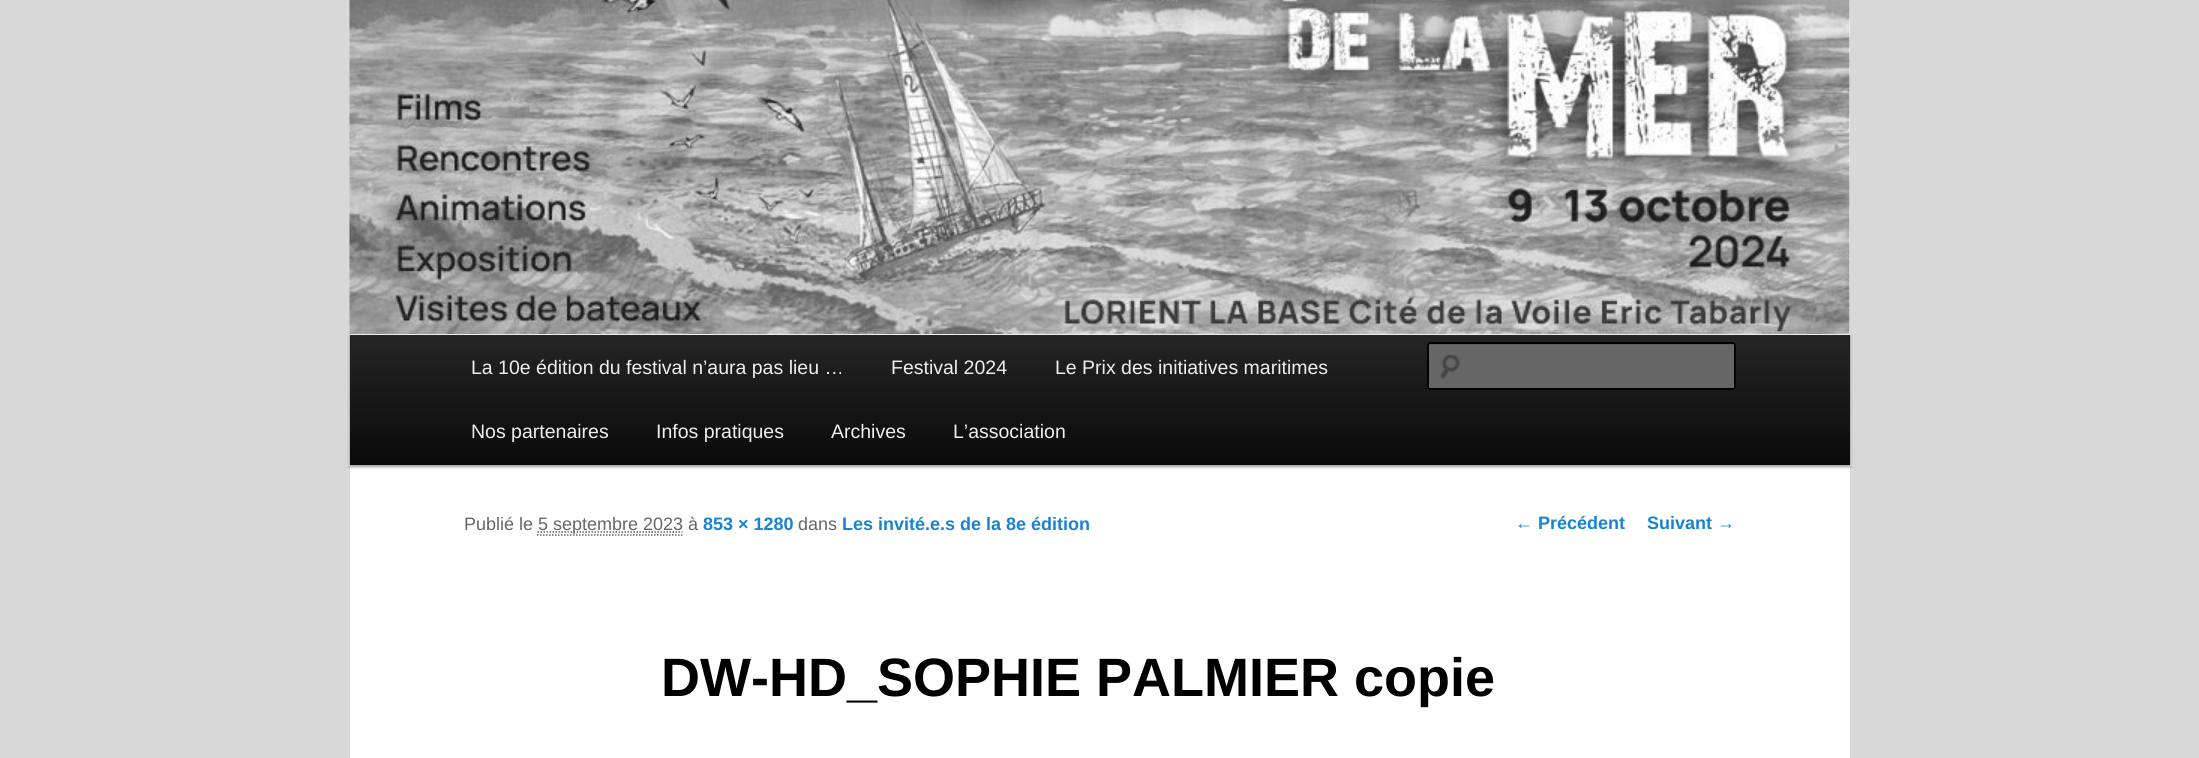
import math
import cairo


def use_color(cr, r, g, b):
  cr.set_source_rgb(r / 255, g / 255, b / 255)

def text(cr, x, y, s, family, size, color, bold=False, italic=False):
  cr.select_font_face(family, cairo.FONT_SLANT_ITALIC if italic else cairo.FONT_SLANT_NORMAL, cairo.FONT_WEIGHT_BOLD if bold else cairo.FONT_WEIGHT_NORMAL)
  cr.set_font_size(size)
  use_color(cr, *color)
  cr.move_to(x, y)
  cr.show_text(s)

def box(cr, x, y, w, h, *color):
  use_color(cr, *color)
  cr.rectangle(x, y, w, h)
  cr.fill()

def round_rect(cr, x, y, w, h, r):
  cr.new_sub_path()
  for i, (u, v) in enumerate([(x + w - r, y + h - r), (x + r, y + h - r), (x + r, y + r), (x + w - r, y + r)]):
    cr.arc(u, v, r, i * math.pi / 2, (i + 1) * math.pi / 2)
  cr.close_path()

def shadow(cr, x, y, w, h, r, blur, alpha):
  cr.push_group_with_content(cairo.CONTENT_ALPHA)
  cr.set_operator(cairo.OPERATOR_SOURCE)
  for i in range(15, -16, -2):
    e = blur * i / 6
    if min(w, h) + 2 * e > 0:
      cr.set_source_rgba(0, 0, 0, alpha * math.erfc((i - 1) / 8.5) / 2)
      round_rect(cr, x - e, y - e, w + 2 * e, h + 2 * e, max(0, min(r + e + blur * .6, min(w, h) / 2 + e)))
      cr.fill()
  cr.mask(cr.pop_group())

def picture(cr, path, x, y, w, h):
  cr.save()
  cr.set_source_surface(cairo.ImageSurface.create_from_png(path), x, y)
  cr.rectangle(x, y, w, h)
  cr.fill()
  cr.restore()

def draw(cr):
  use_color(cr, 216, 216, 216)
  cr.paint()
  box(cr, 350, 0, 1500, 758, 255, 255, 255)
  use_color(cr, 0, 0, 0)
  shadow(cr, 350, 336, 1500, 131, 0, 1.5, 0.4)
  picture(cr, "img_01.png", 349, 0, 1501, 334)
  gradient = cairo.LinearGradient(1100, 334, 1100, 465)
  gradient.add_color_stop_rgba(0, 0.145, 0.145, 0.145, 1)
  gradient.add_color_stop_rgba(1, 0.039, 0.039, 0.039, 1)
  cr.set_source(gradient)
  cr.rectangle(350, 335, 1500, 130)
  cr.fill()
  use_color(cr, 102, 102, 102)
  round_rect(cr, 1427, 342, 309, 48, 3)
  cr.fill()
  picture(cr, "img_02.png", 1440, 354, 20, 25)
  use_color(cr, 92, 92, 92)
  cr.new_path()
  cr.move_to(1430, 345)
  cr.line_to(1732, 345)
  cr.line_to(1734, 346)
  cr.curve_to(1734, 345, 1734, 344, 1732, 344)
  cr.line_to(1430, 344)
  cr.line_to(1428, 345)
  cr.line_to(1428, 346)
  cr.close_path()
  cr.fill()
  round_rect(cr, 1428, 343, 307, 46, 2)
  use_color(cr, 0, 0, 0)
  cr.stroke()
  cr.new_path()
  cr.move_to(537, 535)
  cr.line_to(682.5, 535)
  use_color(cr, 102, 102, 102)
  cr.set_line_width(1.5)
  cr.set_dash([1.5, 1.5])
  cr.stroke()
  cr.new_path()
  cr.move_to(537.5, 532)
  cr.line_to(682.5, 532)
  cr.stroke()
  text(cr, 471, 374, "La 10e édition du festival n’aura pas lieu …", "Liberation Sans", 19.5, (238, 238, 238))
  text(cr, 891, 374, "Festival 2024", "Liberation Sans", 19.5, (238, 238, 238))
  text(cr, 1055, 374, "Le Prix des initiatives maritimes", "Liberation Sans", 19.5, (238, 238, 238))
  text(cr, 471, 438, "Nos partenaires", "Liberation Sans", 19.5, (238, 238, 238))
  text(cr, 656, 438, "Infos pratiques", "Liberation Sans", 19.5, (238, 238, 238))
  text(cr, 831, 438, "Archives", "Liberation Sans", 19.5, (238, 238, 238))
  text(cr, 953, 438, "L’association", "Liberation Sans", 19.5, (238, 238, 238))
  text(cr, 464, 530, "Publié le", "Liberation Sans", 18, (102, 102, 102))
  text(cr, 538, 530, "5 septembre 2023 à", "Liberation Sans", 18, (102, 102, 102))
  text(cr, 703, 530, "853 × 1280", "Liberation Sans", 18, (25, 130, 209), bold=True)
  text(cr, 798, 530, "dans", "Liberation Sans", 18, (102, 102, 102))
  text(cr, 842, 530, "Les invité.e.s de la 8e édition", "Liberation Sans", 18, (25, 130, 209), bold=True)
  text(cr, 661, 696, "DW-HD_SOPHIE PALMIER copie", "Liberation Sans", 54, (0, 0, 0), bold=True)
  text(cr, 1515, 529, "← Précédent", "Liberation Sans", 18, (25, 130, 209), bold=True)
  text(cr, 1647, 529, "Suivant →", "Liberation Sans", 18, (25, 130, 209), bold=True)


surface = cairo.ImageSurface(cairo.FORMAT_RGB24, 2199, 758)
cr = cairo.Context(surface)
options = cairo.FontOptions()
options.set_hint_metrics(cairo.HINT_METRICS_OFF)
options.set_hint_style(cairo.HINT_STYLE_NONE)
cr.set_font_options(options)
cr.set_miter_limit(4)
draw(cr)
surface.write_to_png("out.png")
